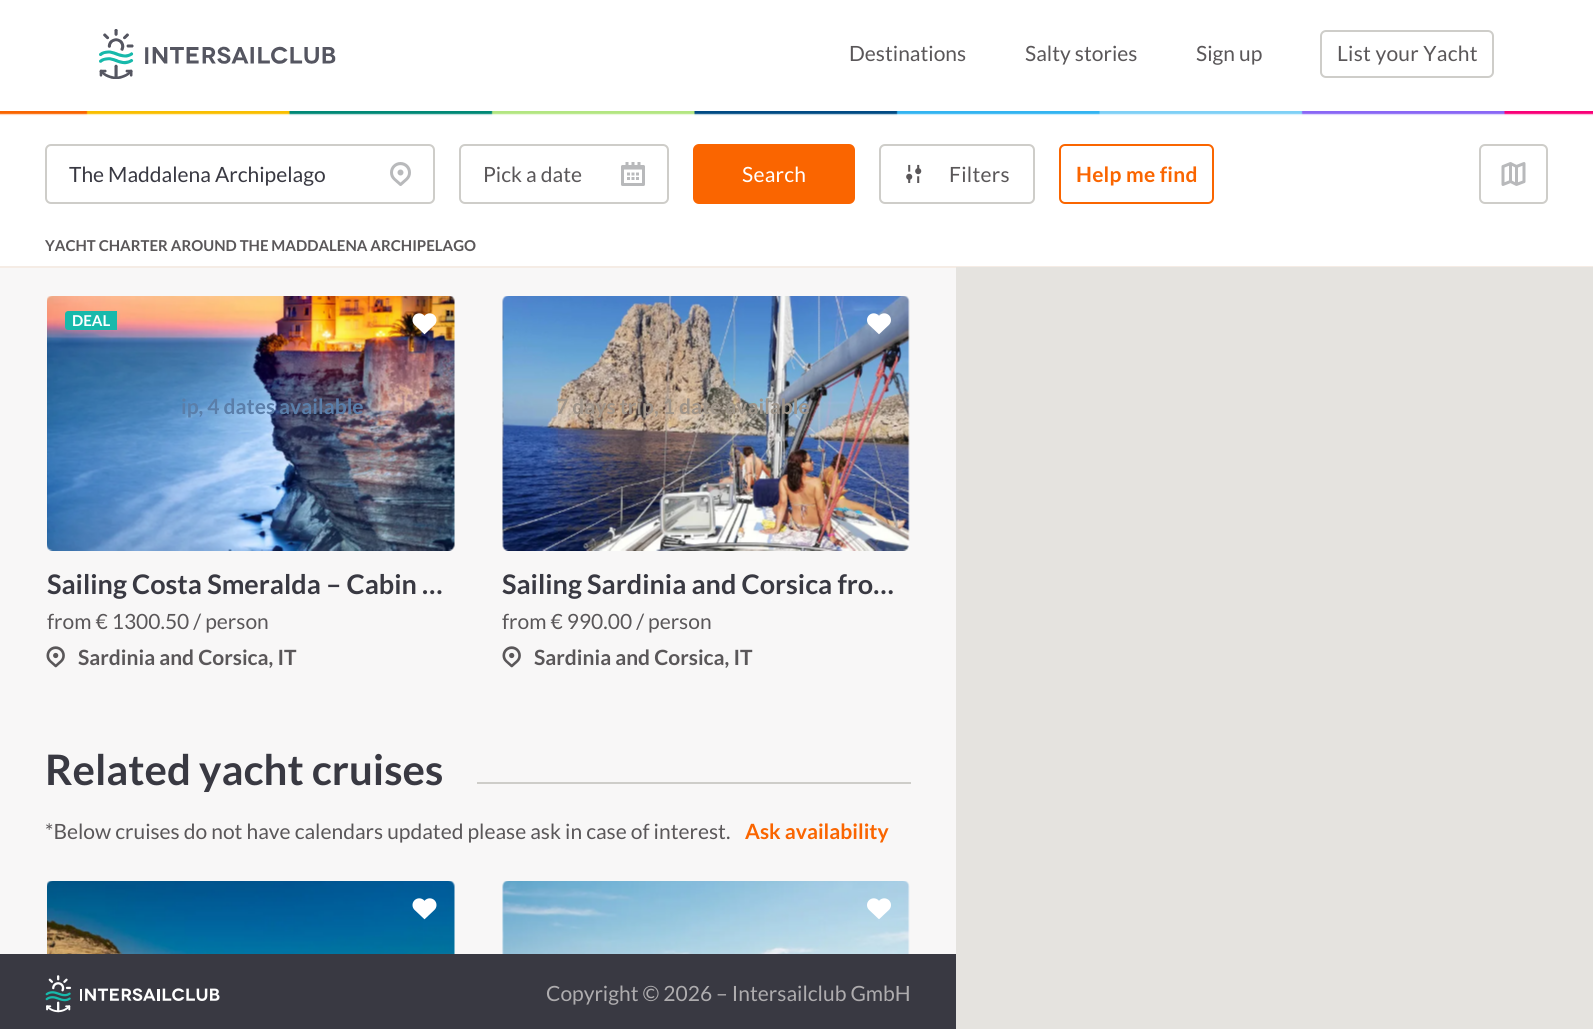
import math
import cairo


def use_color(cr, r, g, b):
  cr.set_source_rgb(r / 255, g / 255, b / 255)

def text(cr, x, y, s, family, size, color, bold=False, italic=False):
  cr.select_font_face(family, cairo.FONT_SLANT_ITALIC if italic else cairo.FONT_SLANT_NORMAL, cairo.FONT_WEIGHT_BOLD if bold else cairo.FONT_WEIGHT_NORMAL)
  cr.set_font_size(size)
  use_color(cr, *color)
  cr.move_to(x, y)
  cr.show_text(s)

def spaced_text(cr, x, y, s, letter, word):
  cr.move_to(x, y)
  for ch in s:
    cr.show_text(ch)
    cr.rel_move_to(letter + word * (ch == ' '), 0)

def box(cr, x, y, w, h, *color):
  use_color(cr, *color)
  cr.rectangle(x, y, w, h)
  cr.fill()

def round_rect(cr, x, y, w, h, r):
  cr.new_sub_path()
  for i, (u, v) in enumerate([(x + w - r, y + h - r), (x + r, y + h - r), (x + r, y + r), (x + w - r, y + r)]):
    cr.arc(u, v, r, i * math.pi / 2, (i + 1) * math.pi / 2)
  cr.close_path()

def picture(cr, path, x, y, w, h):
  cr.save()
  cr.set_source_surface(cairo.ImageSurface.create_from_png(path), x, y)
  cr.rectangle(x, y, w, h)
  cr.fill()
  cr.restore()

def draw(cr):
  use_color(cr, 255, 255, 255)
  cr.paint()
  picture(cr, "img_01.png", 99, 29, 237, 50)
  round_rect(cr, 1321, 31, 172, 46, 5)
  use_color(cr, 206, 205, 201)
  cr.stroke()
  picture(cr, "img_02.png", 0, 111, 1593, 5)
  round_rect(cr, 46, 145, 388, 58, 5)
  cr.stroke()
  picture(cr, "img_03.png", 390, 162, 21, 24)
  round_rect(cr, 460, 145, 208, 58, 5)
  cr.stroke()
  picture(cr, "img_04.png", 621, 162, 24, 24)
  use_color(cr, 250, 101, 0)
  round_rect(cr, 693, 144, 162, 60, 6)
  cr.fill()
  round_rect(cr, 880, 145, 154, 58, 5)
  use_color(cr, 206, 205, 201)
  cr.stroke()
  picture(cr, "img_05.png", 906, 164, 16, 19)
  round_rect(cr, 1060, 145, 153, 58, 5)
  use_color(cr, 250, 101, 0)
  cr.stroke()
  round_rect(cr, 1480, 145, 67, 58, 5)
  use_color(cr, 206, 205, 201)
  cr.stroke()
  picture(cr, "img_06.png", 1501, 162, 25, 24)
  box(cr, 0, 268, 956, 686, 248, 247, 247)
  box(cr, 0, 266, 1593, 2, 245, 236, 229)
  picture(cr, "img_08.png", 47, 296, 408, 255)
  use_color(cr, 23, 185, 171)
  cr.new_path()
  cr.move_to(68, 311)
  cr.line_to(117, 311)
  cr.line_to(117, 330)
  cr.line_to(68, 330)
  cr.curve_to(66.5, 330, 65, 328.5, 65, 327)
  cr.line_to(65, 314)
  cr.curve_to(65, 312.5, 66.5, 311, 68, 311)
  cr.close_path()
  cr.fill()
  picture(cr, "img_07.png", 412, 313, 25, 22)
  picture(cr, "img_09.png", 46, 646, 19, 22)
  picture(cr, "img_11.png", 502, 296, 408, 255)
  picture(cr, "img_10.png", 867, 313, 24, 22)
  picture(cr, "img_09.png", 502, 646, 19, 22)
  box(cr, 477, 782, 434, 2, 206, 205, 201)
  picture(cr, "img_12.png", 47, 881, 408, 73)
  picture(cr, "img_13.png", 412, 898, 25, 22)
  picture(cr, "img_14.png", 502, 881, 408, 73)
  picture(cr, "img_15.png", 867, 898, 24, 21)
  box(cr, 0, 954, 956, 75, 57, 57, 66)
  picture(cr, "img_16.png", 45, 975, 175, 38)
  box(cr, 956, 267, 637, 762, 229, 227, 223)
  text(cr, 849, 61, "Destinations", "Lato", 21, (90, 87, 89))
  text(cr, 1025, 61, "Salty stories", "Lato", 21, (90, 87, 89))
  text(cr, 1196, 61, "Sign up", "Lato", 21, (90, 87, 89))
  spaced_text(cr, 1337, 61, "List your Yacht", 0.25, 0)
  text(cr, 69, 182, "The Maddalena Archipelago", "Lato", 21, (57, 57, 66))
  text(cr, 483, 182, "Pick a date", "Lato", 21, (90, 87, 89))
  use_color(cr, 255, 255, 255)
  spaced_text(cr, 742, 182, "Search", 0.25, 0)
  use_color(cr, 90, 87, 89)
  spaced_text(cr, 949, 182, "Filters", 0.25, 0)
  cr.select_font_face("Lato", cairo.FONT_SLANT_NORMAL, cairo.FONT_WEIGHT_BOLD)
  use_color(cr, 250, 101, 0)
  spaced_text(cr, 1076, 182, "Help me find", 0.25, 0)
  text(cr, 45, 251, "YACHT CHARTER AROUND THE MADDALENA ARCHIPELAGO", "Lato", 15, (90, 87, 89), bold=True)
  text(cr, 72, 326, "DEAL", "Lato", 15, (255, 255, 255), bold=True)
  text(cr, 181, 414, "ip, 4 dates available", "Lato", 21, (90, 126, 169), bold=True)
  text(cr, 47, 594, "Sailing Costa Smeralda – Cabin …", "Lato", 27, (57, 57, 66), bold=True)
  text(cr, 47, 629, "from € 1300.50 / person", "Lato", 21, (90, 87, 89))
  text(cr, 78, 665, "Sardinia and Corsica, IT", "Lato", 21, (90, 87, 89), bold=True)
  text(cr, 556, 414, "7 days trip, 1 date available", "Lato", 21, (158, 148, 138), bold=True)
  text(cr, 502, 594, "Sailing Sardinia and Corsica fro…", "Lato", 27, (57, 57, 66), bold=True)
  text(cr, 502, 629, "from € 990.00 / person", "Lato", 21, (90, 87, 89))
  text(cr, 534, 665, "Sardinia and Corsica, IT", "Lato", 21, (90, 87, 89), bold=True)
  text(cr, 45, 785, "Related yacht cruises", "Lato", 42, (57, 57, 66), bold=True)
  text(cr, 45, 839, "*Below cruises do not have calendars updated please ask in case of interest.", "Lato", 21, (90, 87, 89))
  text(cr, 745, 839, "Ask availability", "Lato", 21, (250, 101, 0), bold=True)
  text(cr, 546, 1001, "Copyright © 2026 – Intersailclub GmbH", "Lato", 21, (174, 172, 174))


surface = cairo.ImageSurface(cairo.FORMAT_RGB24, 1593, 1029)
cr = cairo.Context(surface)
options = cairo.FontOptions()
options.set_hint_metrics(cairo.HINT_METRICS_OFF)
options.set_hint_style(cairo.HINT_STYLE_NONE)
cr.set_font_options(options)
cr.set_miter_limit(4)
draw(cr)
surface.write_to_png("out.png")
